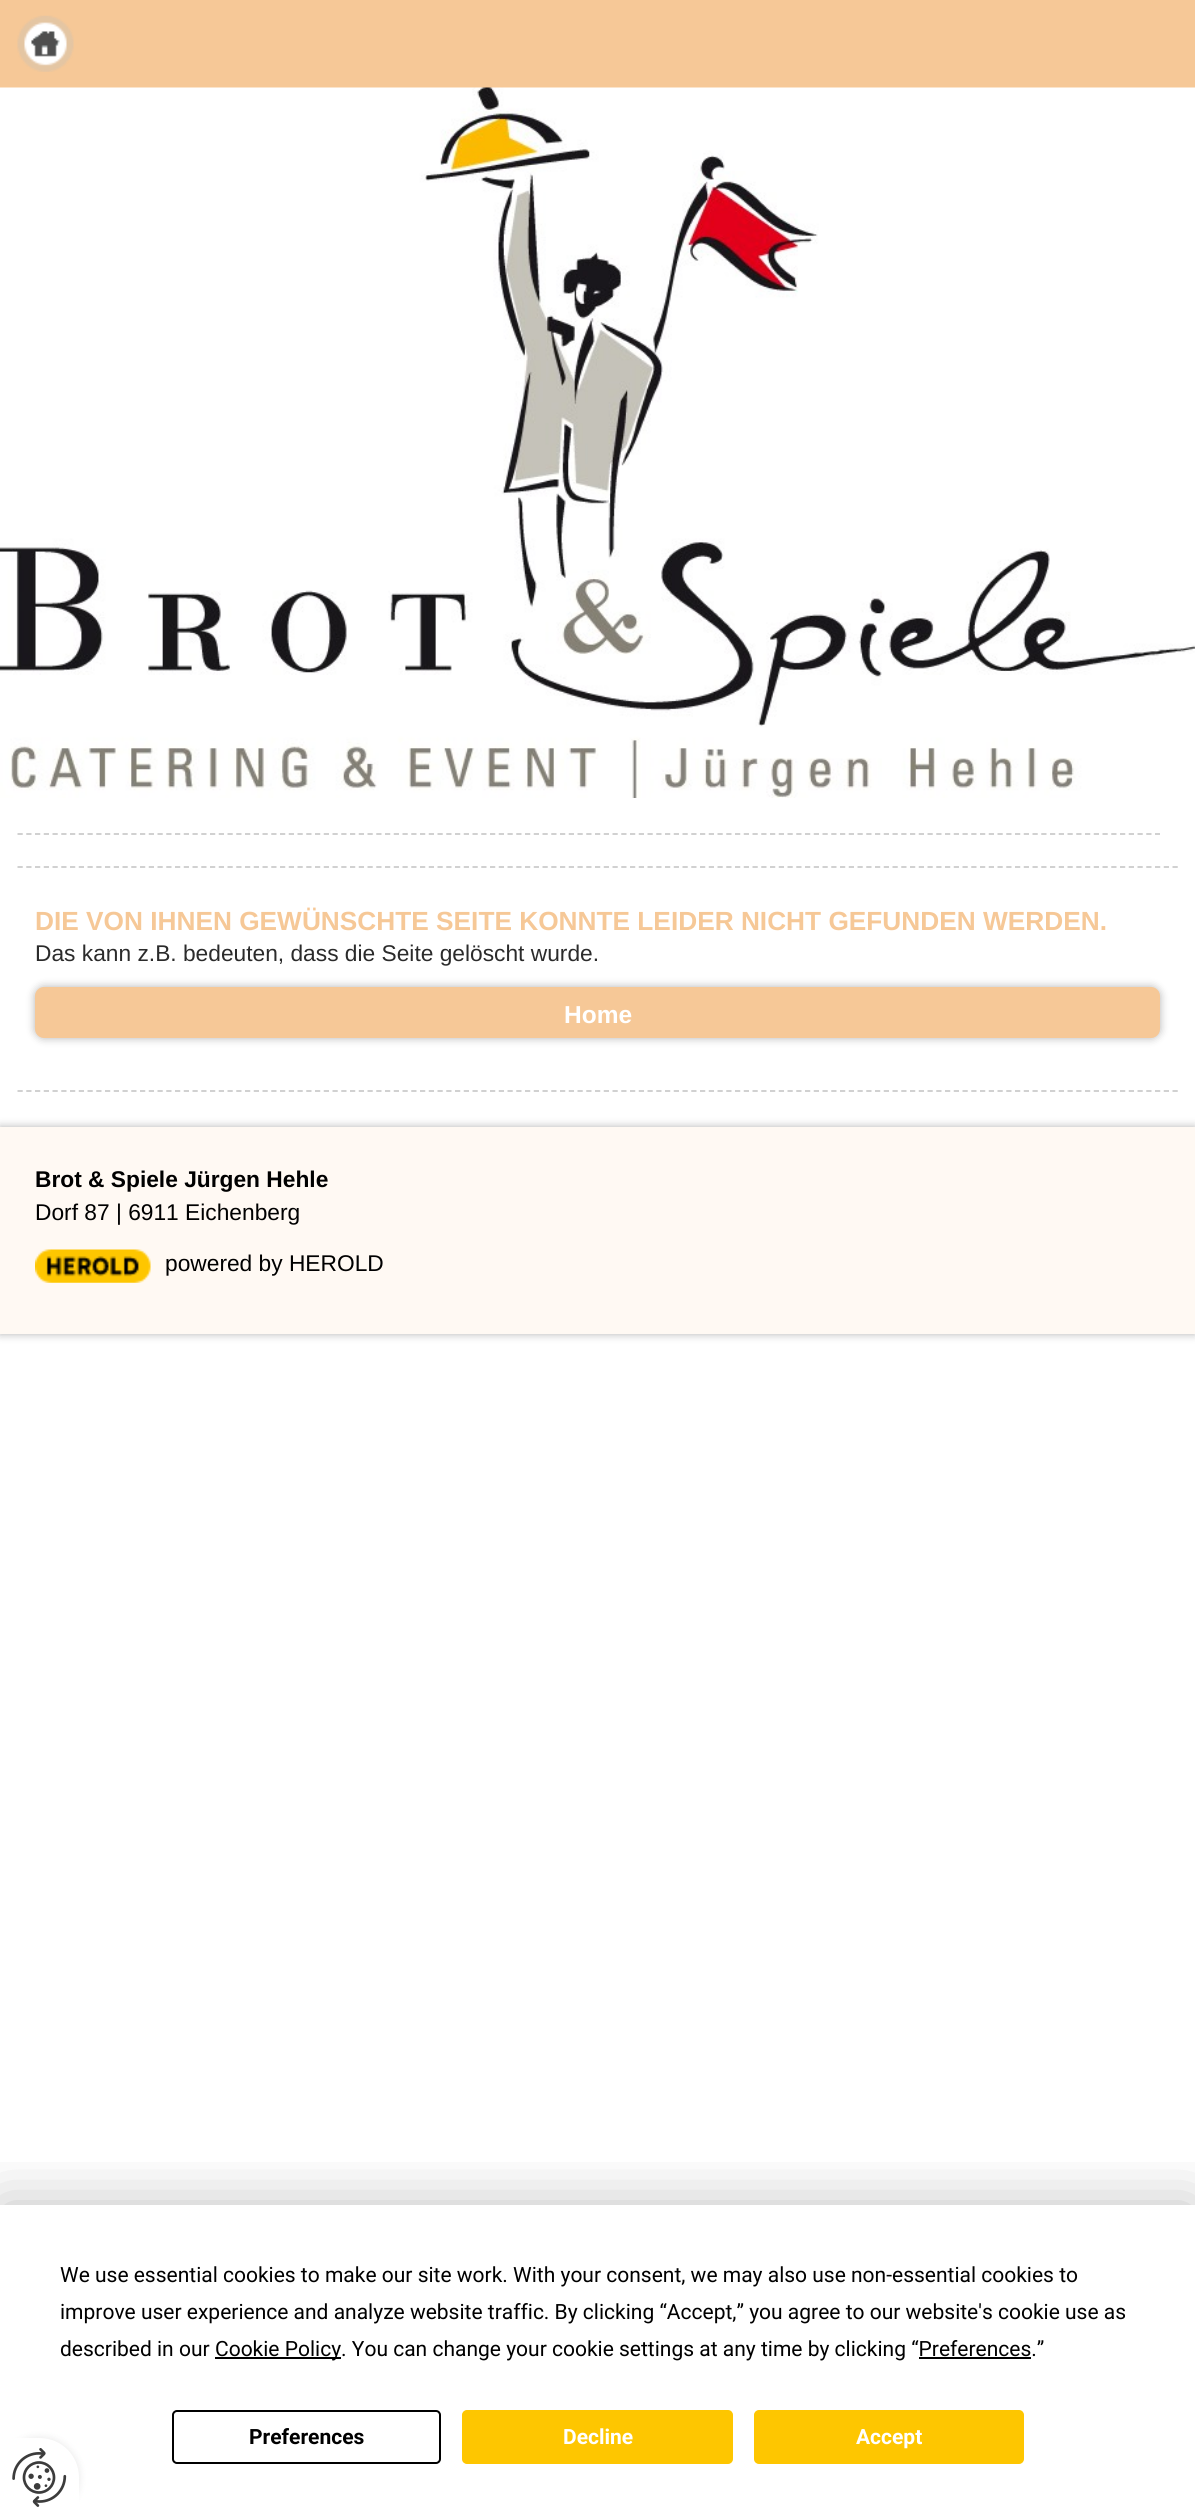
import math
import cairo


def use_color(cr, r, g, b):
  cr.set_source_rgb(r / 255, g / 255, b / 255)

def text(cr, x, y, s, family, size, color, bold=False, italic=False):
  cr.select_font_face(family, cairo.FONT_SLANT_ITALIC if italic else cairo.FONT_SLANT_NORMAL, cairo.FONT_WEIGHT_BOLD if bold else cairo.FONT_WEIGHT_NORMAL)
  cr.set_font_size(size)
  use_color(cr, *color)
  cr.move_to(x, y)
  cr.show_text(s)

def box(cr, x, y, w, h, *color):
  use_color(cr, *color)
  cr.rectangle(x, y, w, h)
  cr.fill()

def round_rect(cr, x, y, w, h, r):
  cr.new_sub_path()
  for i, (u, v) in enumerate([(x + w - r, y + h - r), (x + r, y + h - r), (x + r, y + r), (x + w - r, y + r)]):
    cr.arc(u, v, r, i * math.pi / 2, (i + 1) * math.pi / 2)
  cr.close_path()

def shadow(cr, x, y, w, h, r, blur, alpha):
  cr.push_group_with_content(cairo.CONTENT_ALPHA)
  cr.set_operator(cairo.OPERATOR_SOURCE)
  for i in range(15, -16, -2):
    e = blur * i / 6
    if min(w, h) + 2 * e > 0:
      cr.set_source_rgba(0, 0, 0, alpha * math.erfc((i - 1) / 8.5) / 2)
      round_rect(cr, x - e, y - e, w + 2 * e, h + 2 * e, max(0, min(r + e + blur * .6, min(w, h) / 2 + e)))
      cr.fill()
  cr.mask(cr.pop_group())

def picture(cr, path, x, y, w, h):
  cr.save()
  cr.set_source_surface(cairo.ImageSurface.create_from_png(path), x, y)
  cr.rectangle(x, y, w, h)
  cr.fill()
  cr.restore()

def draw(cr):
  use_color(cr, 255, 255, 255)
  cr.paint()
  box(cr, 0, 0, 1195, 88, 246, 200, 151)
  picture(cr, "img_01.png", 17, 15, 57, 57)
  picture(cr, "img_02.png", 0, 87, 1195, 711)
  cr.new_path()
  cr.move_to(17.5, 867)
  cr.line_to(1178, 867)
  use_color(cr, 204, 204, 204)
  cr.set_line_width(1.8)
  cr.set_dash([5.25, 3.5])
  cr.stroke()
  cr.new_path()
  cr.move_to(17.5, 834)
  cr.line_to(1160, 834)
  cr.stroke()
  use_color(cr, 0, 0, 0)
  shadow(cr, 35, 987, 1125, 51, 9, 4.5, 0.3)
  use_color(cr, 246, 200, 151)
  round_rect(cr, 35, 987, 1125, 51, 9)
  cr.fill()
  cr.new_path()
  cr.move_to(17.5, 1091)
  cr.line_to(1178, 1091)
  use_color(cr, 204, 204, 204)
  cr.stroke()
  use_color(cr, 0, 0, 0)
  shadow(cr, 0, 1127, 1195, 207, 0, 4.5, 0.3)
  box(cr, 0, 1127, 1195, 207, 255, 249, 243)
  picture(cr, "img_03.png", 35, 1249, 116, 34)
  cr.save()
  cr.rectangle(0, 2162, 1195, 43)
  cr.clip()
  use_color(cr, 0, 0, 0)
  shadow(cr, 0, 2205, 1195, 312, 0, 30.5, 0.25)
  cr.restore()
  box(cr, 215, 2357, 126, 2, 0, 0, 0)
  box(cr, 919, 2357, 112, 2, 0, 0, 0)
  round_rect(cr, 173, 2411, 267, 52, 4)
  cr.set_line_width(2)
  cr.set_dash([])
  cr.stroke()
  use_color(cr, 254, 198, 0)
  round_rect(cr, 463, 2411, 269, 52, 4)
  cr.fill_preserve()
  cr.stroke()
  round_rect(cr, 755, 2411, 268, 52, 4)
  cr.fill_preserve()
  cr.stroke()
  use_color(cr, 0, 0, 0)
  shadow(cr, 0, 2438, 79, 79, 39.5, 4, 0.1)
  use_color(cr, 255, 255, 255)
  cr.new_path()
  cr.move_to(0, 2438)
  cr.line_to(39.5, 2438)
  cr.curve_to(61.5, 2438, 79, 2455.5, 79, 2477.5)
  cr.line_to(79, 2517)
  cr.line_to(0, 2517)
  cr.close_path()
  cr.fill()
  picture(cr, "img_04.png", 12, 2448, 55, 59)
  text(cr, 35, 930, "DIE VON IHNEN GEWÜNSCHTE SEITE KONNTE LEIDER NICHT GEFUNDEN WERDEN.", "Liberation Sans", 26.25, (246, 200, 151), bold=True)
  text(cr, 35, 961, "Das kann z.B. bedeuten, dass die Seite gelöscht wurde.", "Liberation Sans", 22.75, (43, 43, 43))
  text(cr, 564, 1023, "Home", "Liberation Sans", 24.5, (255, 255, 255), bold=True)
  text(cr, 35, 1187, "Brot & Spiele Jürgen Hehle", "Liberation Sans", 22.75, (0, 0, 0), bold=True)
  text(cr, 35, 1220, "Dorf 87 | 6911 Eichenberg", "Liberation Sans", 22.75, (0, 0, 0))
  text(cr, 165, 1271, "powered by HEROLD", "Liberation Sans", 22.75, (0, 0, 0))
  text(cr, 60, 2282, "We use essential cookies to make our site work. With your consent, we may also use non-essential cookies to", "Roboto", 21, (0, 0, 0))
  text(cr, 60, 2319, "improve user experience and analyze website traffic. By clicking “Accept,” you agree to our website's cookie use as", "Roboto", 21, (0, 0, 0))
  text(cr, 60, 2356, "described in our", "Roboto", 21, (0, 0, 0))
  text(cr, 215, 2356, "Cookie Policy. You can change your cookie settings at any time by clicking “Preferences.”", "Roboto", 21, (0, 0, 0))
  text(cr, 249, 2444, "Preferences", "Roboto", 21, (0, 0, 0), bold=True)
  text(cr, 563, 2444, "Decline", "Roboto", 21, (255, 255, 255), bold=True)
  text(cr, 856, 2444, "Accept", "Roboto", 21, (255, 255, 255), bold=True)


surface = cairo.ImageSurface(cairo.FORMAT_RGB24, 1195, 2516)
cr = cairo.Context(surface)
options = cairo.FontOptions()
options.set_hint_metrics(cairo.HINT_METRICS_OFF)
options.set_hint_style(cairo.HINT_STYLE_NONE)
cr.set_font_options(options)
cr.set_miter_limit(4)
draw(cr)
surface.write_to_png("out.png")
